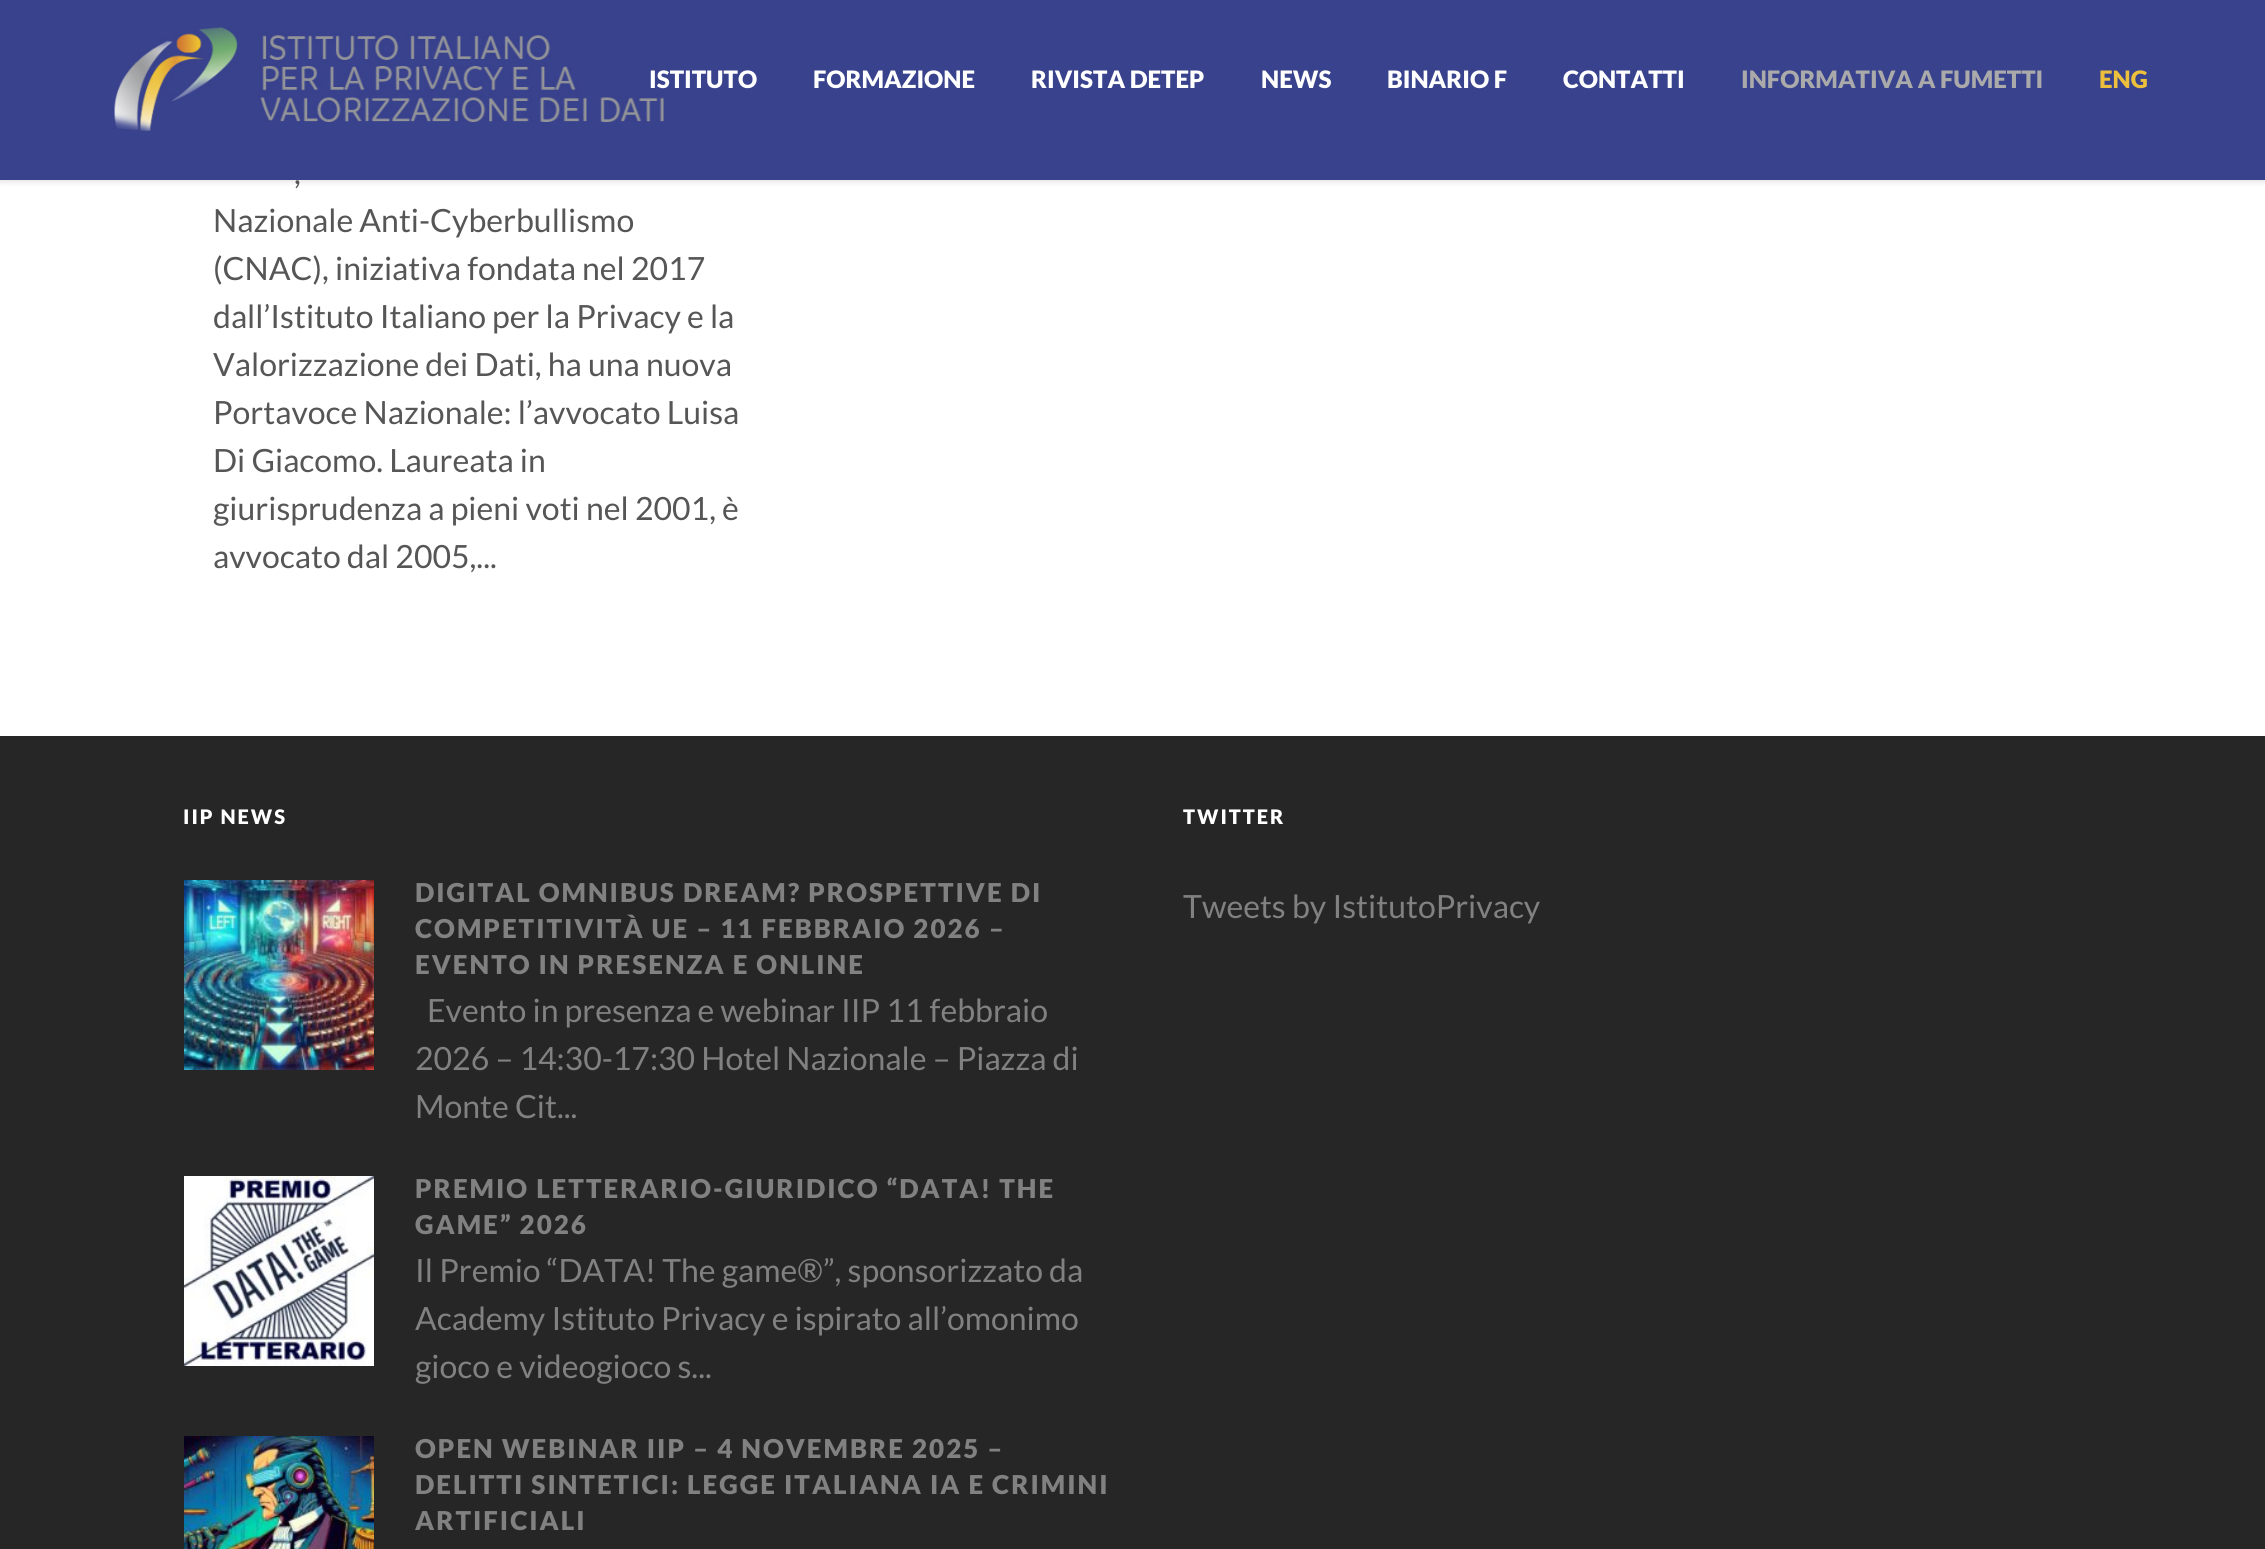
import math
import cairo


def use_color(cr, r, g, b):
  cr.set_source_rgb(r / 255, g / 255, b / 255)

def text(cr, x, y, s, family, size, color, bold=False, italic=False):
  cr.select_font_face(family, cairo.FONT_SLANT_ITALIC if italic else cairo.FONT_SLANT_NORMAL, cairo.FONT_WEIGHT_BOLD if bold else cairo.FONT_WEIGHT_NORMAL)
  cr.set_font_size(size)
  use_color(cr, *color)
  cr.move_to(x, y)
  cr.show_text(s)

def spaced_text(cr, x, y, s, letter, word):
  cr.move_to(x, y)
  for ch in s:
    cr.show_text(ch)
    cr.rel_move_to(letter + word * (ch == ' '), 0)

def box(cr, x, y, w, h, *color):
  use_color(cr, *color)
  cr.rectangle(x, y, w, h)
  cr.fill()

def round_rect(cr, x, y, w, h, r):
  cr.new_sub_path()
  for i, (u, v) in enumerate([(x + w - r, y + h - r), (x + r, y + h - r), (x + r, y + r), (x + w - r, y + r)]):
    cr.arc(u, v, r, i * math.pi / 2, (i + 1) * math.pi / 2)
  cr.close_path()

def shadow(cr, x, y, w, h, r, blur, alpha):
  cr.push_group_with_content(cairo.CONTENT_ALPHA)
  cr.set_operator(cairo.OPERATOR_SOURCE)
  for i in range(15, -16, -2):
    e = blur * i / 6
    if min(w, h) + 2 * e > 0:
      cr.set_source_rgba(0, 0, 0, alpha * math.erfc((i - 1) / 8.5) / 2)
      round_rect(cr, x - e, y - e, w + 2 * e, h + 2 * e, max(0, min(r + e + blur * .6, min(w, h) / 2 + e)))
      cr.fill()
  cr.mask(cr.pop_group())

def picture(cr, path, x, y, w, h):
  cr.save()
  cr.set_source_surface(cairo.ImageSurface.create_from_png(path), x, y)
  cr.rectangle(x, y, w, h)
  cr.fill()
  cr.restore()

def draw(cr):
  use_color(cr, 255, 255, 255)
  cr.paint()
  use_color(cr, 0, 0, 0)
  shadow(cr, 0, 2, 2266, 180, 0, 3, 0.11)
  box(cr, 0, 0, 2265, 180, 57, 66, 141)
  picture(cr, "img_01.png", 114, 27, 550, 104)
  box(cr, 0, 736, 2265, 813, 38, 38, 38)
  picture(cr, "img_02.png", 184, 880, 190, 190)
  picture(cr, "img_03.png", 184, 1176, 190, 190)
  picture(cr, "img_04.png", 184, 1436, 190, 113)
  text(cr, 649, 88, "ISTITUTO", "Lato Black", 24, (255, 255, 255))
  text(cr, 813, 88, "FORMAZIONE", "Lato Black", 24, (255, 255, 255))
  text(cr, 1031, 88, "RIVISTA DETEP", "Lato Black", 24, (255, 255, 255))
  text(cr, 1261, 88, "NEWS", "Lato Black", 24, (255, 255, 255))
  text(cr, 1387, 88, "BINARIO F", "Lato Black", 24, (255, 255, 255))
  text(cr, 1563, 88, "CONTATTI", "Lato Black", 24, (255, 255, 255))
  text(cr, 1741, 88, "INFORMATIVA A FUMETTI", "Lato Black", 24, (170, 170, 170))
  text(cr, 2099, 88, "ENG", "Lato Black", 24, (236, 192, 60))
  text(cr, 294, 184, ",", "Lato", 32, (86, 86, 86))
  text(cr, 213, 232, "Nazionale Anti-Cyberbullismo", "Lato", 32, (86, 86, 86))
  text(cr, 213, 280, "(CNAC), iniziativa fondata nel 2017", "Lato", 32, (86, 86, 86))
  text(cr, 213, 328, "dall’Istituto Italiano per la Privacy e la", "Lato", 32, (86, 86, 86))
  text(cr, 213, 376, "Valorizzazione dei Dati, ha una nuova", "Lato", 32, (86, 86, 86))
  text(cr, 213, 424, "Portavoce Nazionale: l’avvocato Luisa", "Lato", 32, (86, 86, 86))
  text(cr, 213, 472, "Di Giacomo. Laureata in", "Lato", 32, (86, 86, 86))
  text(cr, 213, 520, "giurisprudenza a pieni voti nel 2001, è", "Lato", 32, (86, 86, 86))
  text(cr, 213, 568, "avvocato dal 2005,...", "Lato", 32, (86, 86, 86))
  cr.select_font_face("Lato Black")
  cr.set_font_size(20)
  use_color(cr, 255, 255, 255)
  spaced_text(cr, 183, 824, "IIP NEWS", 2, 0)
  cr.set_font_size(26)
  use_color(cr, 129, 129, 129)
  spaced_text(cr, 415, 902, "DIGITAL OMNIBUS DREAM? PROSPETTIVE DI", 2, 0)
  spaced_text(cr, 415, 938, "COMPETITIVITÀ UE – 11 FEBBRAIO 2026 –", 2, 0)
  spaced_text(cr, 415, 974, "EVENTO IN PRESENZA E ONLINE", 2, 0)
  text(cr, 427, 1022, "Evento in presenza e webinar IIP 11 febbraio", "Lato", 32, (129, 129, 129))
  text(cr, 415, 1070, "2026 – 14:30-17:30 Hotel Nazionale – Piazza di", "Lato", 32, (129, 129, 129))
  text(cr, 415, 1118, "Monte Cit...", "Lato", 32, (129, 129, 129))
  cr.select_font_face("Lato Black")
  cr.set_font_size(26)
  spaced_text(cr, 415, 1198, "PREMIO LETTERARIO-GIURIDICO “DATA! THE", 2, 0)
  spaced_text(cr, 415, 1234, "GAME” 2026", 2, 0)
  text(cr, 415, 1282, "Il Premio “DATA! The game®”, sponsorizzato da", "Lato", 32, (129, 129, 129))
  text(cr, 415, 1330, "Academy Istituto Privacy e ispirato all’omonimo", "Lato", 32, (129, 129, 129))
  text(cr, 415, 1378, "gioco e videogioco s...", "Lato", 32, (129, 129, 129))
  cr.select_font_face("Lato Black")
  cr.set_font_size(26)
  spaced_text(cr, 415, 1458, "OPEN WEBINAR IIP – 4 NOVEMBRE 2025 –", 2, 0)
  spaced_text(cr, 415, 1494, "DELITTI SINTETICI: LEGGE ITALIANA IA E CRIMINI", 2, 0)
  spaced_text(cr, 415, 1530, "ARTIFICIALI", 2, 0)
  cr.set_font_size(20)
  use_color(cr, 255, 255, 255)
  spaced_text(cr, 1183, 824, "TWITTER", 2, 0)
  text(cr, 1183, 918, "Tweets by IstitutoPrivacy", "Lato", 32, (129, 129, 129))


surface = cairo.ImageSurface(cairo.FORMAT_RGB24, 2265, 1549)
cr = cairo.Context(surface)
options = cairo.FontOptions()
options.set_hint_metrics(cairo.HINT_METRICS_OFF)
options.set_hint_style(cairo.HINT_STYLE_NONE)
cr.set_font_options(options)
cr.set_miter_limit(4)
draw(cr)
surface.write_to_png("out.png")
